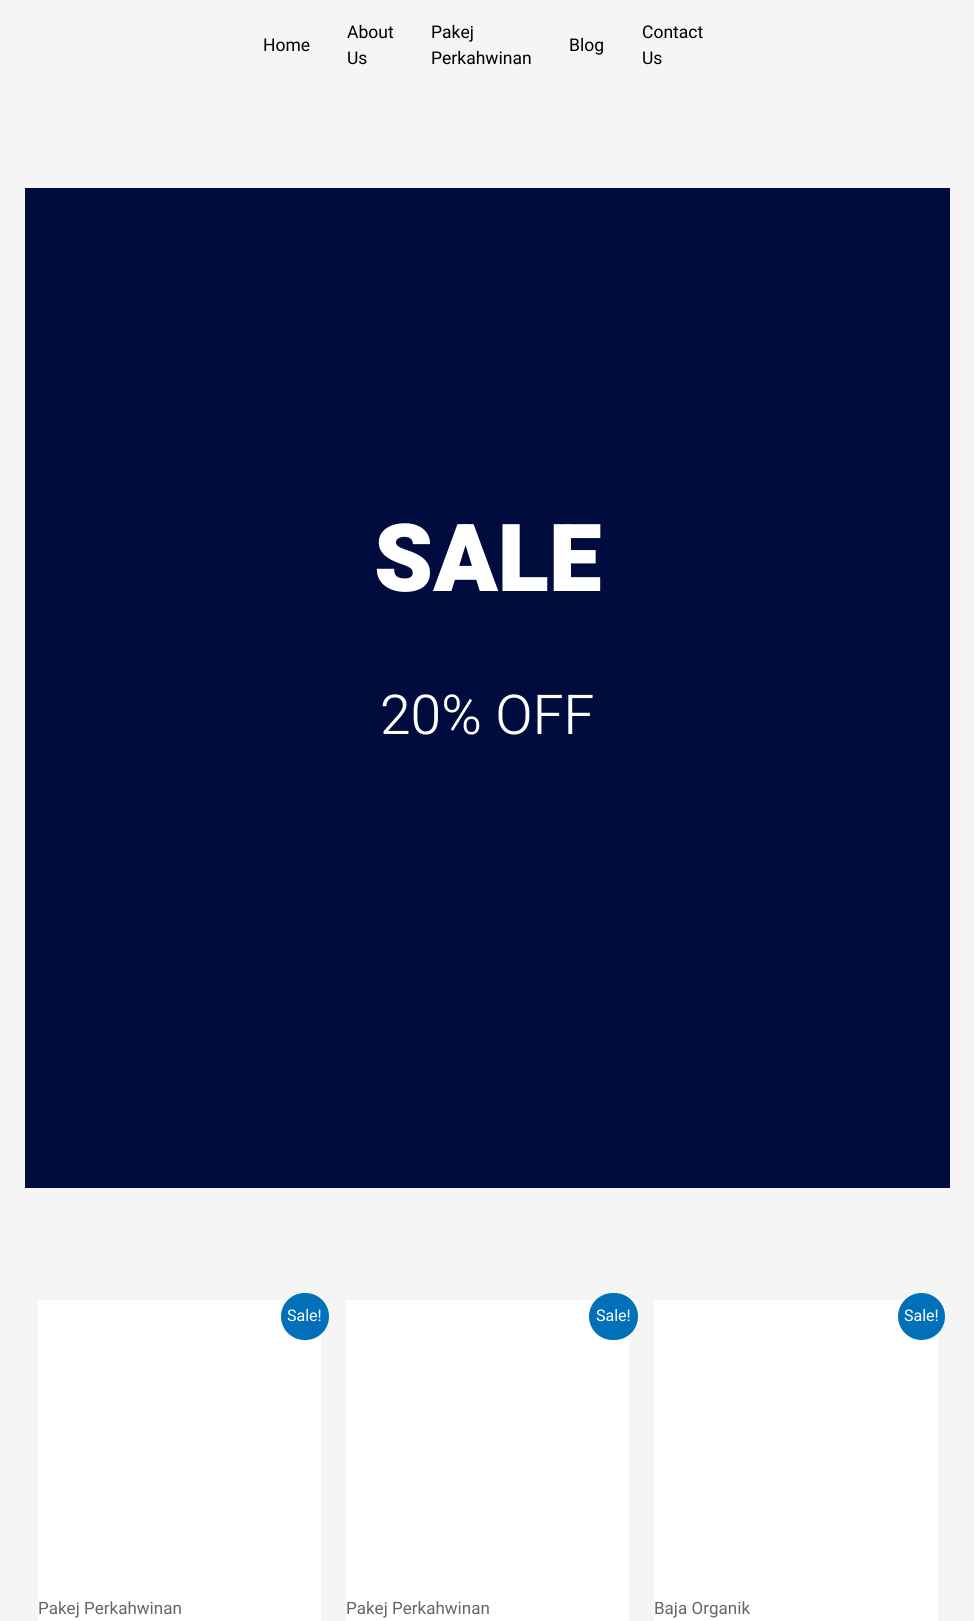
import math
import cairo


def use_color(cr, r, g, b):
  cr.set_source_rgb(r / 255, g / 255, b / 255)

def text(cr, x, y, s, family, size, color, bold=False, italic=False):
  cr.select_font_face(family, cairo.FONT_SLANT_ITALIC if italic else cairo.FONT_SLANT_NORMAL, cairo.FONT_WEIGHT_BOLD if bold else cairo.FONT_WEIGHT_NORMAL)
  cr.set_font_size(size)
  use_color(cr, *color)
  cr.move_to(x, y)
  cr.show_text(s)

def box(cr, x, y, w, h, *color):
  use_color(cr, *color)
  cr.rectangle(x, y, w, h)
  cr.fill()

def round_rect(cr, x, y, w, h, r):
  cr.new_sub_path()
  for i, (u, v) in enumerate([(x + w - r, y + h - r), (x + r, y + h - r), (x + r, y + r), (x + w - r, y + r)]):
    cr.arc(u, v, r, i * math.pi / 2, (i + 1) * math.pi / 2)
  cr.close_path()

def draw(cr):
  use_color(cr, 245, 245, 245)
  cr.paint()
  box(cr, 25, 188, 925, 1000, 0, 11, 62)
  box(cr, 38, 1300, 283, 321, 255, 255, 255)
  use_color(cr, 1, 112, 185)
  round_rect(cr, 281, 1293, 48, 47, 23.5)
  cr.fill()
  box(cr, 346, 1300, 283, 321, 255, 255, 255)
  use_color(cr, 1, 112, 185)
  round_rect(cr, 589, 1293, 49, 47, 23.5)
  cr.fill()
  box(cr, 654, 1300, 284, 321, 255, 255, 255)
  use_color(cr, 1, 112, 185)
  cr.arc(921.5, 1316.5, 23.5, 0, 2 * math.pi)
  cr.fill()
  text(cr, 263, 51, "Home", "Heebo", 17.5, (0, 0, 0))
  text(cr, 347, 38, "About", "Heebo", 17.5, (0, 0, 0))
  text(cr, 347, 64, "Us", "Heebo", 17.5, (0, 0, 0))
  text(cr, 431, 38, "Pakej", "Heebo", 17.5, (0, 0, 0))
  text(cr, 431, 64, "Perkahwinan", "Heebo", 17.5, (0, 0, 0))
  text(cr, 569, 51, "Blog", "Heebo", 17.5, (0, 0, 0))
  text(cr, 642, 38, "Contact", "Heebo", 17.5, (0, 0, 0))
  text(cr, 642, 64, "Us", "Heebo", 17.5, (0, 0, 0))
  text(cr, 374, 591, "SALE", "Heebo Black", 94, (255, 255, 255))
  text(cr, 380, 734, "20% OFF", "Heebo Light", 55, (255, 255, 255))
  text(cr, 287, 1321, "Sale!", "Heebo", 16, (255, 255, 255))
  text(cr, 38, 1614, "Pakej Perkahwinan", "Heebo", 17, (102, 102, 102))
  text(cr, 596, 1321, "Sale!", "Heebo", 16, (255, 255, 255))
  text(cr, 346, 1614, "Pakej Perkahwinan", "Heebo", 17, (102, 102, 102))
  text(cr, 904, 1321, "Sale!", "Heebo", 16, (255, 255, 255))
  text(cr, 654, 1614, "Baja Organik", "Heebo", 17, (102, 102, 102))


surface = cairo.ImageSurface(cairo.FORMAT_RGB24, 974, 1621)
cr = cairo.Context(surface)
options = cairo.FontOptions()
options.set_hint_metrics(cairo.HINT_METRICS_OFF)
options.set_hint_style(cairo.HINT_STYLE_NONE)
cr.set_font_options(options)
cr.set_miter_limit(4)
draw(cr)
surface.write_to_png("out.png")
